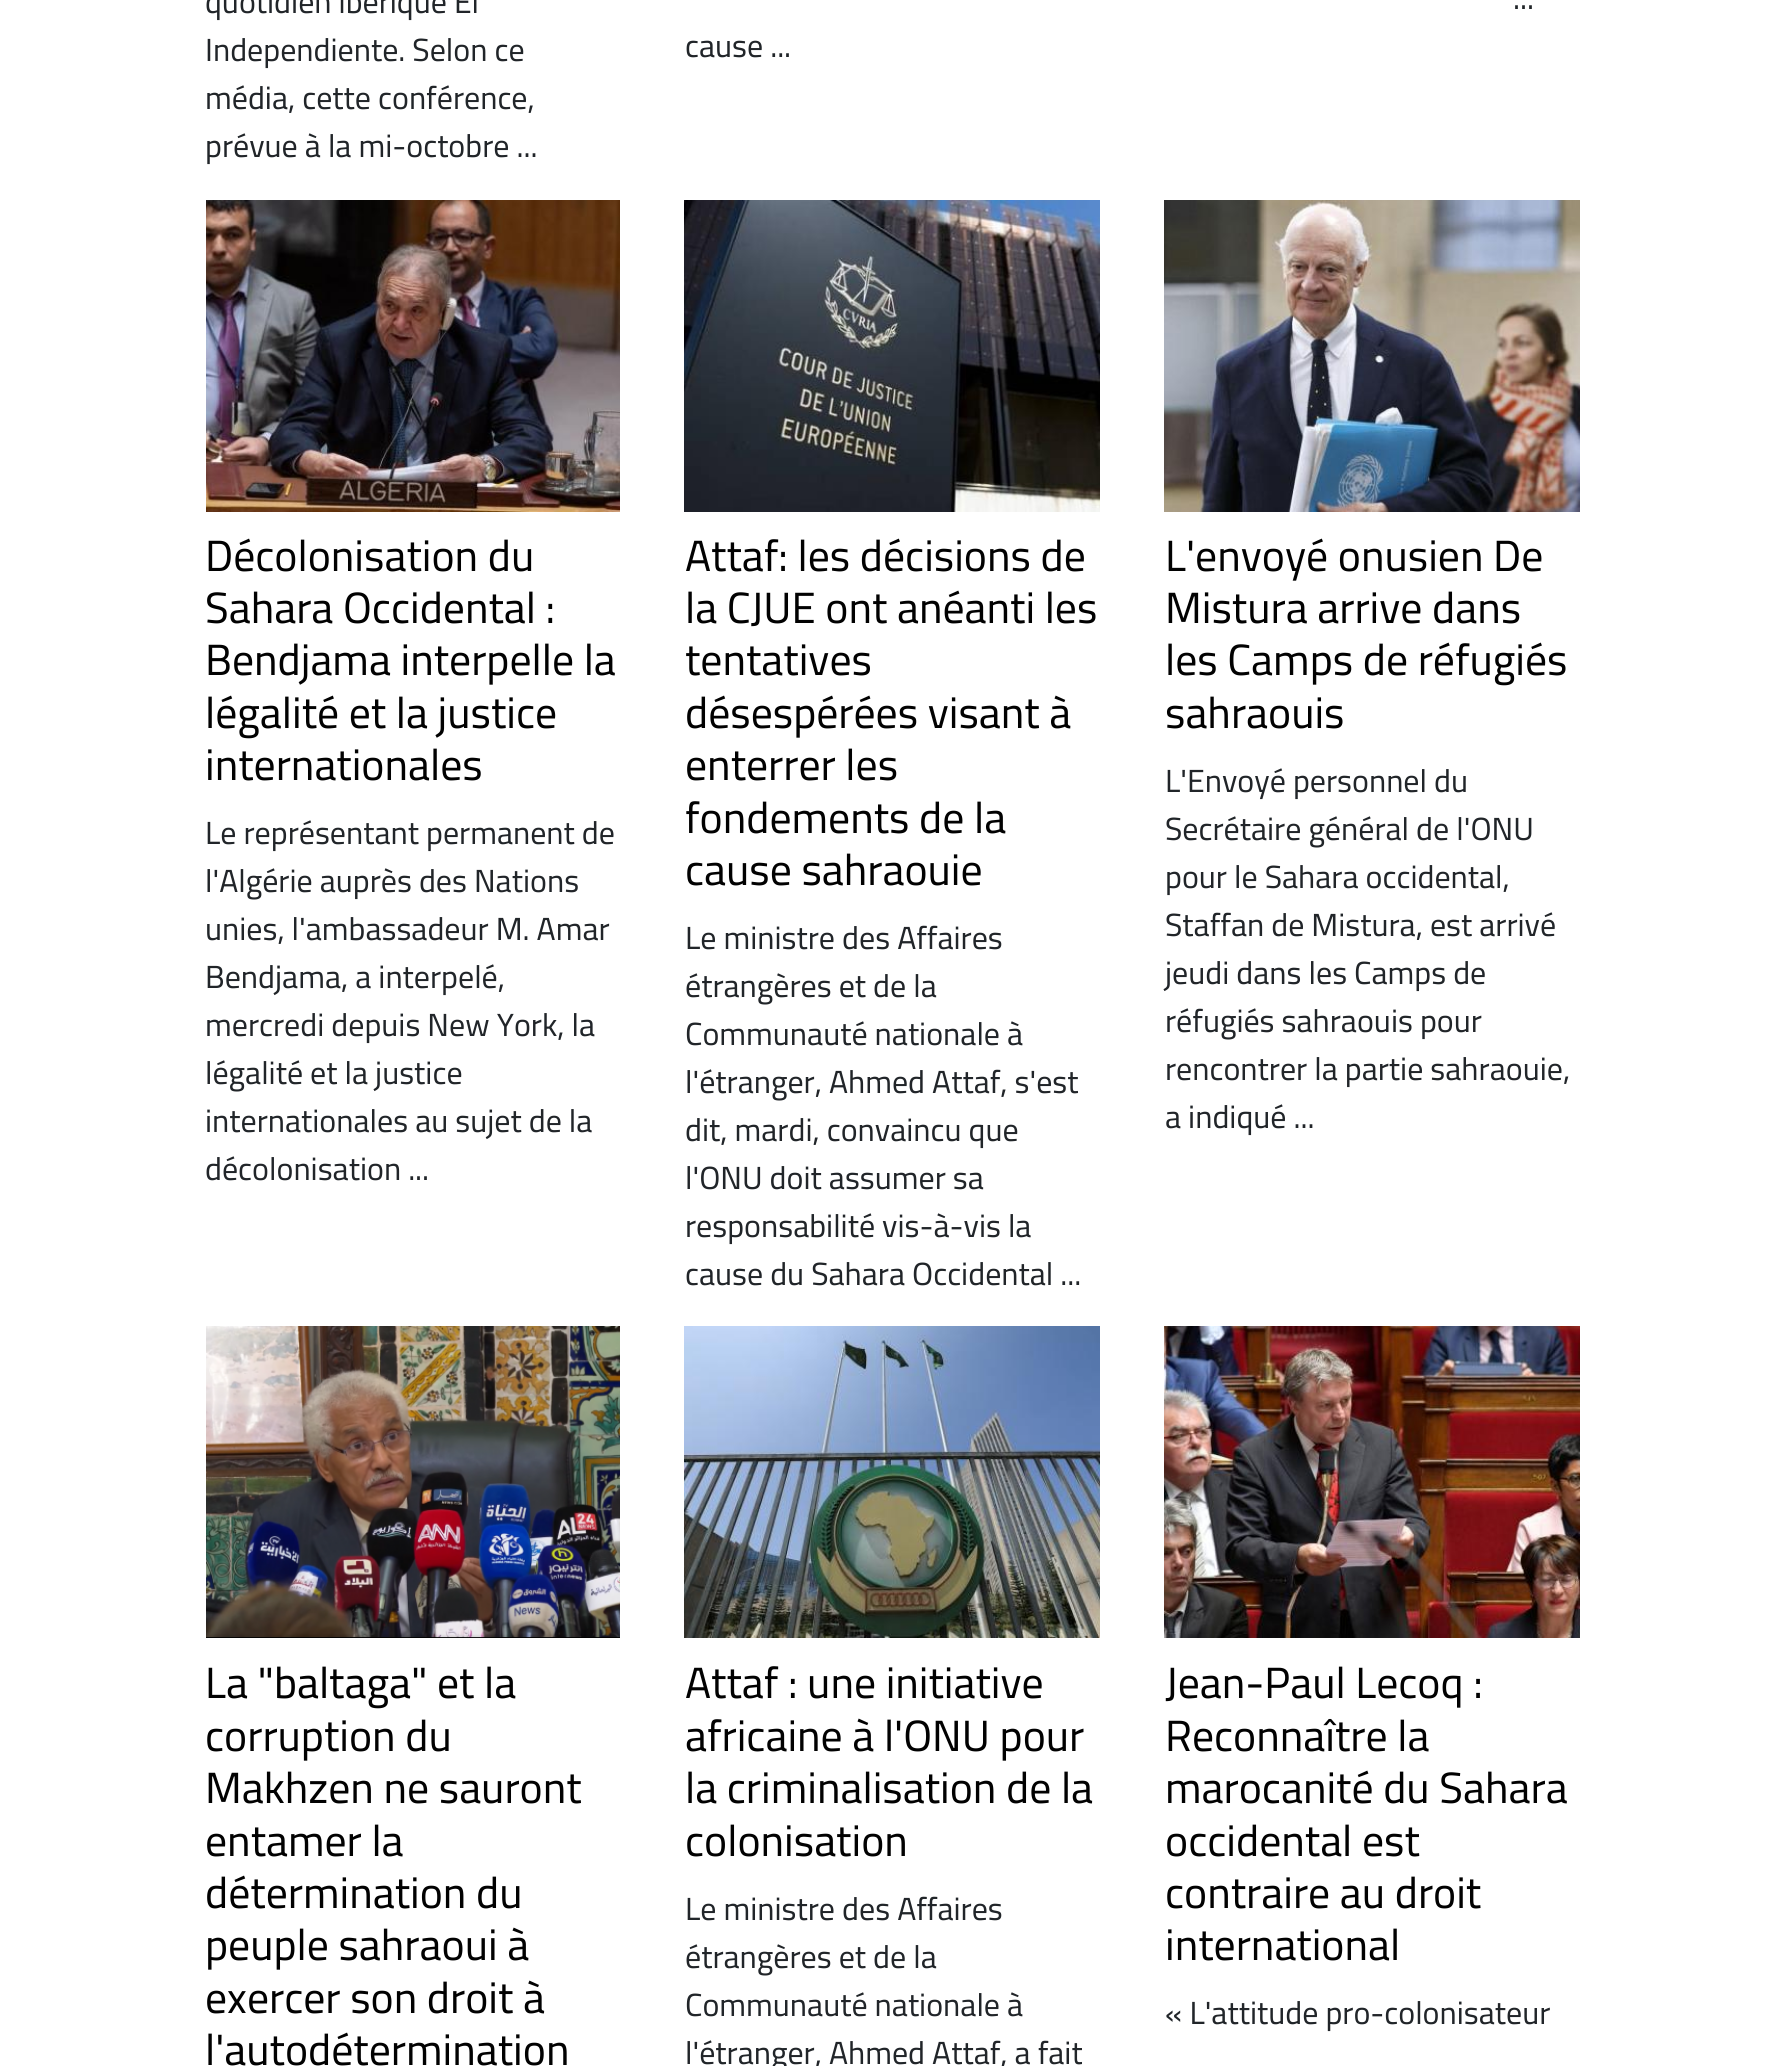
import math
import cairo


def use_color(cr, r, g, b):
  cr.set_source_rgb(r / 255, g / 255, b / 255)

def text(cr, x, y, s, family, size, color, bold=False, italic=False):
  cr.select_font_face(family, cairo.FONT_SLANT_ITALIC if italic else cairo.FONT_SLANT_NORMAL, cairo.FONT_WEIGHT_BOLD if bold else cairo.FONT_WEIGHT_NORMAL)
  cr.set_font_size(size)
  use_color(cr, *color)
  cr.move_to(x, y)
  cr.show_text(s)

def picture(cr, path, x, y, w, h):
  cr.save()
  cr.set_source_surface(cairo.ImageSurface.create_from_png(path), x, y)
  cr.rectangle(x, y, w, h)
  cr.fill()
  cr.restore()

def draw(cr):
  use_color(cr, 255, 255, 255)
  cr.paint()
  picture(cr, "img_01.png", 206, 200, 414, 312)
  picture(cr, "img_02.png", 684, 200, 416, 312)
  picture(cr, "img_03.png", 1164, 200, 416, 312)
  picture(cr, "img_04.png", 206, 1326, 414, 312)
  picture(cr, "img_05.png", 684, 1326, 416, 312)
  picture(cr, "img_06.png", 1164, 1326, 416, 312)
  text(cr, 205, 13, "quotidien ibérique El", "Cairo", 32, (33, 37, 41))
  text(cr, 205, 61, "Independiente. Selon ce", "Cairo", 32, (33, 37, 41))
  text(cr, 205, 109, "média, cette conférence,", "Cairo", 32, (33, 37, 41))
  text(cr, 205, 157, "prévue à la mi-octobre ...", "Cairo", 32, (33, 37, 41))
  text(cr, 1513, 9, "...", "Cairo", 32, (33, 37, 41))
  text(cr, 685, 57, "cause ...", "Cairo", 32, (33, 37, 41))
  text(cr, 205, 571, "Décolonisation du", "Cairo", 43.75, (1, 1, 1))
  text(cr, 205, 623, "Sahara Occidental :", "Cairo", 43.75, (1, 1, 1))
  text(cr, 205, 675, "Bendjama interpelle la", "Cairo", 43.75, (1, 1, 1))
  text(cr, 205, 728, "légalité et la justice", "Cairo", 43.75, (1, 1, 1))
  text(cr, 205, 780, "internationales", "Cairo", 43.75, (1, 1, 1))
  text(cr, 205, 844, "Le représentant permanent de", "Cairo", 32, (33, 37, 41))
  text(cr, 205, 892, "l'Algérie auprès des Nations", "Cairo", 32, (33, 37, 41))
  text(cr, 205, 940, "unies, l'ambassadeur M. Amar", "Cairo", 32, (33, 37, 41))
  text(cr, 205, 988, "Bendjama, a interpelé,", "Cairo", 32, (33, 37, 41))
  text(cr, 205, 1036, "mercredi depuis New York, la", "Cairo", 32, (33, 37, 41))
  text(cr, 205, 1084, "légalité et la justice", "Cairo", 32, (33, 37, 41))
  text(cr, 205, 1132, "internationales au sujet de la", "Cairo", 32, (33, 37, 41))
  text(cr, 205, 1180, "décolonisation ...", "Cairo", 32, (33, 37, 41))
  text(cr, 685, 571, "Attaf: les décisions de", "Cairo", 43.75, (1, 1, 1))
  text(cr, 685, 623, "la CJUE ont anéanti les", "Cairo", 43.75, (1, 1, 1))
  text(cr, 685, 675, "tentatives", "Cairo", 43.75, (1, 1, 1))
  text(cr, 685, 728, "désespérées visant à", "Cairo", 43.75, (1, 1, 1))
  text(cr, 685, 780, "enterrer les", "Cairo", 43.75, (1, 1, 1))
  text(cr, 685, 833, "fondements de la", "Cairo", 43.75, (1, 1, 1))
  text(cr, 685, 885, "cause sahraouie", "Cairo", 43.75, (1, 1, 1))
  text(cr, 685, 949, "Le ministre des Affaires", "Cairo", 32, (33, 37, 41))
  text(cr, 685, 997, "étrangères et de la", "Cairo", 32, (33, 37, 41))
  text(cr, 685, 1045, "Communauté nationale à", "Cairo", 32, (33, 37, 41))
  text(cr, 685, 1093, "l'étranger, Ahmed Attaf, s'est", "Cairo", 32, (33, 37, 41))
  text(cr, 685, 1141, "dit, mardi, convaincu que", "Cairo", 32, (33, 37, 41))
  text(cr, 685, 1189, "l'ONU doit assumer sa", "Cairo", 32, (33, 37, 41))
  text(cr, 685, 1237, "responsabilité vis-à-vis la", "Cairo", 32, (33, 37, 41))
  text(cr, 685, 1285, "cause du Sahara Occidental ...", "Cairo", 32, (33, 37, 41))
  text(cr, 1165, 571, "L'envoyé onusien De", "Cairo", 43.75, (1, 1, 1))
  text(cr, 1165, 623, "Mistura arrive dans", "Cairo", 43.75, (1, 1, 1))
  text(cr, 1165, 675, "les Camps de réfugiés", "Cairo", 43.75, (1, 1, 1))
  text(cr, 1165, 728, "sahraouis", "Cairo", 43.75, (1, 1, 1))
  text(cr, 1165, 792, "L'Envoyé personnel du", "Cairo", 32, (33, 37, 41))
  text(cr, 1165, 840, "Secrétaire général de l'ONU", "Cairo", 32, (33, 37, 41))
  text(cr, 1165, 888, "pour le Sahara occidental,", "Cairo", 32, (33, 37, 41))
  text(cr, 1165, 936, "Staffan de Mistura, est arrivé", "Cairo", 32, (33, 37, 41))
  text(cr, 1165, 984, "jeudi dans les Camps de", "Cairo", 32, (33, 37, 41))
  text(cr, 1165, 1032, "réfugiés sahraouis pour", "Cairo", 32, (33, 37, 41))
  text(cr, 1165, 1080, "rencontrer la partie sahraouie,", "Cairo", 32, (33, 37, 41))
  text(cr, 1165, 1128, "a indiqué ...", "Cairo", 32, (33, 37, 41))
  text(cr, 205, 1698, "La \"baltaga\" et la", "Cairo", 43.75, (1, 1, 1))
  text(cr, 205, 1751, "corruption du", "Cairo", 43.75, (1, 1, 1))
  text(cr, 205, 1803, "Makhzen ne sauront", "Cairo", 43.75, (1, 1, 1))
  text(cr, 205, 1856, "entamer la", "Cairo", 43.75, (1, 1, 1))
  text(cr, 205, 1908, "détermination du", "Cairo", 43.75, (1, 1, 1))
  text(cr, 205, 1960, "peuple sahraoui à", "Cairo", 43.75, (1, 1, 1))
  text(cr, 205, 2013, "exercer son droit à", "Cairo", 43.75, (1, 1, 1))
  text(cr, 205, 2065, "l'autodétermination", "Cairo", 43.75, (1, 1, 1))
  text(cr, 685, 1698, "Attaf : une initiative", "Cairo", 43.75, (1, 1, 1))
  text(cr, 685, 1751, "africaine à l'ONU pour", "Cairo", 43.75, (1, 1, 1))
  text(cr, 685, 1803, "la criminalisation de la", "Cairo", 43.75, (1, 1, 1))
  text(cr, 685, 1856, "colonisation", "Cairo", 43.75, (1, 1, 1))
  text(cr, 685, 1920, "Le ministre des Affaires", "Cairo", 32, (33, 37, 41))
  text(cr, 685, 1968, "étrangères et de la", "Cairo", 32, (33, 37, 41))
  text(cr, 685, 2016, "Communauté nationale à", "Cairo", 32, (33, 37, 41))
  text(cr, 685, 2064, "l'étranger, Ahmed Attaf, a fait", "Cairo", 32, (33, 37, 41))
  text(cr, 1165, 1698, "Jean-Paul Lecoq :", "Cairo", 43.75, (1, 1, 1))
  text(cr, 1165, 1751, "Reconnaître la", "Cairo", 43.75, (1, 1, 1))
  text(cr, 1165, 1803, "marocanité du Sahara", "Cairo", 43.75, (1, 1, 1))
  text(cr, 1165, 1856, "occidental est", "Cairo", 43.75, (1, 1, 1))
  text(cr, 1165, 1908, "contraire au droit", "Cairo", 43.75, (1, 1, 1))
  text(cr, 1165, 1960, "international", "Cairo", 43.75, (1, 1, 1))
  text(cr, 1165, 2024, "« L'attitude pro-colonisateur", "Cairo", 32, (33, 37, 41))


surface = cairo.ImageSurface(cairo.FORMAT_RGB24, 1785, 2066)
cr = cairo.Context(surface)
options = cairo.FontOptions()
options.set_hint_metrics(cairo.HINT_METRICS_OFF)
options.set_hint_style(cairo.HINT_STYLE_NONE)
cr.set_font_options(options)
cr.set_miter_limit(4)
draw(cr)
surface.write_to_png("out.png")
